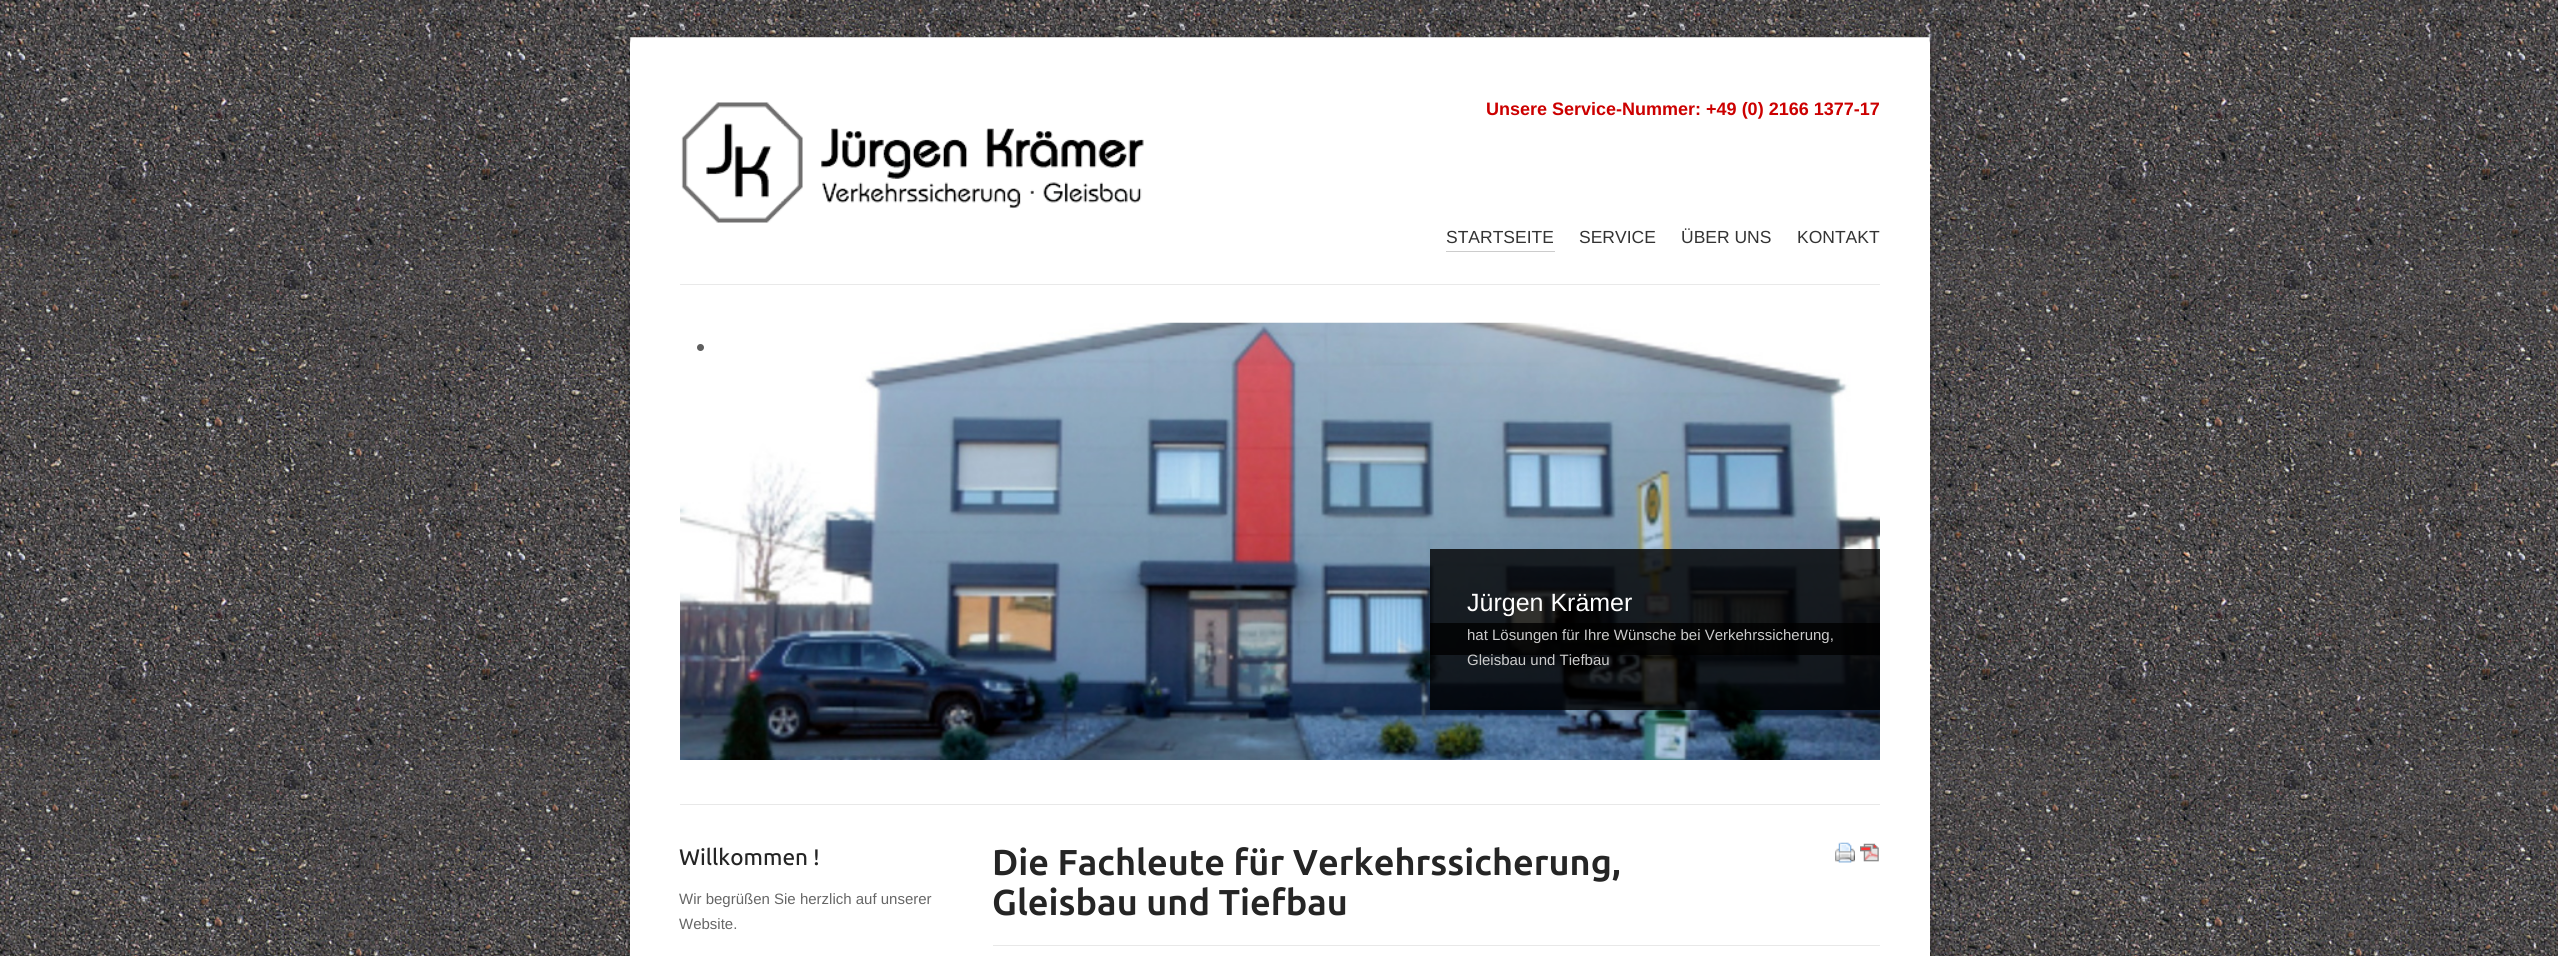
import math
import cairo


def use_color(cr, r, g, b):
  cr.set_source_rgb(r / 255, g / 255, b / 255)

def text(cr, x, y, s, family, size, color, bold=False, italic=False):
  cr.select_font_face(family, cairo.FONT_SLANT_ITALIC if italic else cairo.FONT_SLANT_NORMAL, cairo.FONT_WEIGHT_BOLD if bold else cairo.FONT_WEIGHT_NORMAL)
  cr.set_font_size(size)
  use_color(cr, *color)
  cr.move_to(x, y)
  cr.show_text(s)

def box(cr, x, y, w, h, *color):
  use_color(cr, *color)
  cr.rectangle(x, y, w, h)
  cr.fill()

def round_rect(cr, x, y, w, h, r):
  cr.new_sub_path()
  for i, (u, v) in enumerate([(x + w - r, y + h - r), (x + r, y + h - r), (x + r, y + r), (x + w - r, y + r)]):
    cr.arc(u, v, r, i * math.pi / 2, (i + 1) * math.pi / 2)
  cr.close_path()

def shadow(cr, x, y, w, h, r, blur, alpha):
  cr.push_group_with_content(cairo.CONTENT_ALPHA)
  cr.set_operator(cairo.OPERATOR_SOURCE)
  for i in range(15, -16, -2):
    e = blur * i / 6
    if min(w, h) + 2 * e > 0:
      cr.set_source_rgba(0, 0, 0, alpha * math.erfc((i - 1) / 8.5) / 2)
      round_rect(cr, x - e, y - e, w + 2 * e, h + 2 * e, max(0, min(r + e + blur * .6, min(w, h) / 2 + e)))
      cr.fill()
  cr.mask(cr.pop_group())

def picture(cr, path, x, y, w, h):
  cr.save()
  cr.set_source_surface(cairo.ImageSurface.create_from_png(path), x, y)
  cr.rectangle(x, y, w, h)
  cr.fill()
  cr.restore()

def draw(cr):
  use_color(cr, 255, 255, 255)
  cr.paint()
  picture(cr, "img_01.png", 0, 0, 2558, 956)
  use_color(cr, 0, 0, 0)
  shadow(cr, 626, 34, 1308, 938, 10, 2, 0.1)
  use_color(cr, 255, 255, 255)
  round_rect(cr, 630, 38, 1300, 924, 6)
  cr.fill()
  cr.new_path()
  cr.move_to(649, 56)
  cr.line_to(1911, 56)
  cr.line_to(1911, 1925)
  cr.line_to(649, 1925)
  cr.close_path()
  cr.set_line_width(37.5)
  cr.stroke()
  box(cr, 680, 804, 1200, 1, 232, 232, 232)
  picture(cr, "img_02.png", 681, 102, 463, 121)
  box(cr, 1446, 251, 109, 1, 204, 204, 204)
  box(cr, 680, 284, 1200, 1, 233, 233, 233)
  picture(cr, "img_03.png", 680, 322, 1200, 438)
  use_color(cr, 95, 95, 95)
  cr.arc(700.5, 347.5, 5.5, 0, 2 * math.pi)
  cr.fill_preserve()
  use_color(cr, 255, 255, 255)
  cr.set_line_width(4)
  cr.stroke()
  cr.set_source_rgba(0, 0, 0, 0.8)
  cr.rectangle(1430, 549, 450, 106)
  cr.fill()
  cr.rectangle(1430, 623, 450, 87)
  cr.fill()
  box(cr, 993, 945, 887, 1, 232, 232, 232)
  picture(cr, "img_04.png", 1835, 842, 20, 21)
  picture(cr, "img_05.png", 1860, 843, 19, 19)
  text(cr, 1486, 115, "Unsere Service-Nummer: +49 (0) 2166 1377-17", "Liberation Sans", 18, (204, 0, 0), bold=True)
  text(cr, 1446, 243, "STARTSEITE", "Liberation Sans", 17.5, (51, 51, 51))
  text(cr, 1579, 243, "SERVICE", "Liberation Sans", 17.5, (51, 51, 51))
  text(cr, 1681, 243, "ÜBER UNS", "Liberation Sans", 17.5, (51, 51, 51))
  text(cr, 1797, 243, "KONTAKT", "Liberation Sans", 17.5, (51, 51, 51))
  text(cr, 1467, 611, "Jürgen Krämer", "Liberation Sans", 25, (255, 255, 255))
  text(cr, 1467, 640, "hat Lösungen für Ihre Wünsche bei Verkehrssicherung,", "Liberation Sans", 15, (204, 204, 204))
  text(cr, 1467, 665, "Gleisbau und Tiefbau", "Liberation Sans", 15, (204, 204, 204))
  text(cr, 679, 865, "Willkommen !", "Ubuntu Medium", 22.5, (37, 37, 37))
  text(cr, 679, 904, "Wir begrüßen Sie herzlich auf unserer", "Liberation Sans", 15, (102, 102, 102))
  text(cr, 679, 929, "Website.", "Liberation Sans", 15, (102, 102, 102))
  text(cr, 992, 875, "Die Fachleute für Verkehrssicherung,", "Ubuntu", 36, (37, 37, 37), bold=True)
  text(cr, 992, 915, "Gleisbau und Tiefbau", "Ubuntu", 36, (37, 37, 37), bold=True)


surface = cairo.ImageSurface(cairo.FORMAT_RGB24, 2558, 956)
cr = cairo.Context(surface)
options = cairo.FontOptions()
options.set_hint_metrics(cairo.HINT_METRICS_OFF)
options.set_hint_style(cairo.HINT_STYLE_NONE)
cr.set_font_options(options)
cr.set_miter_limit(4)
draw(cr)
surface.write_to_png("out.png")
